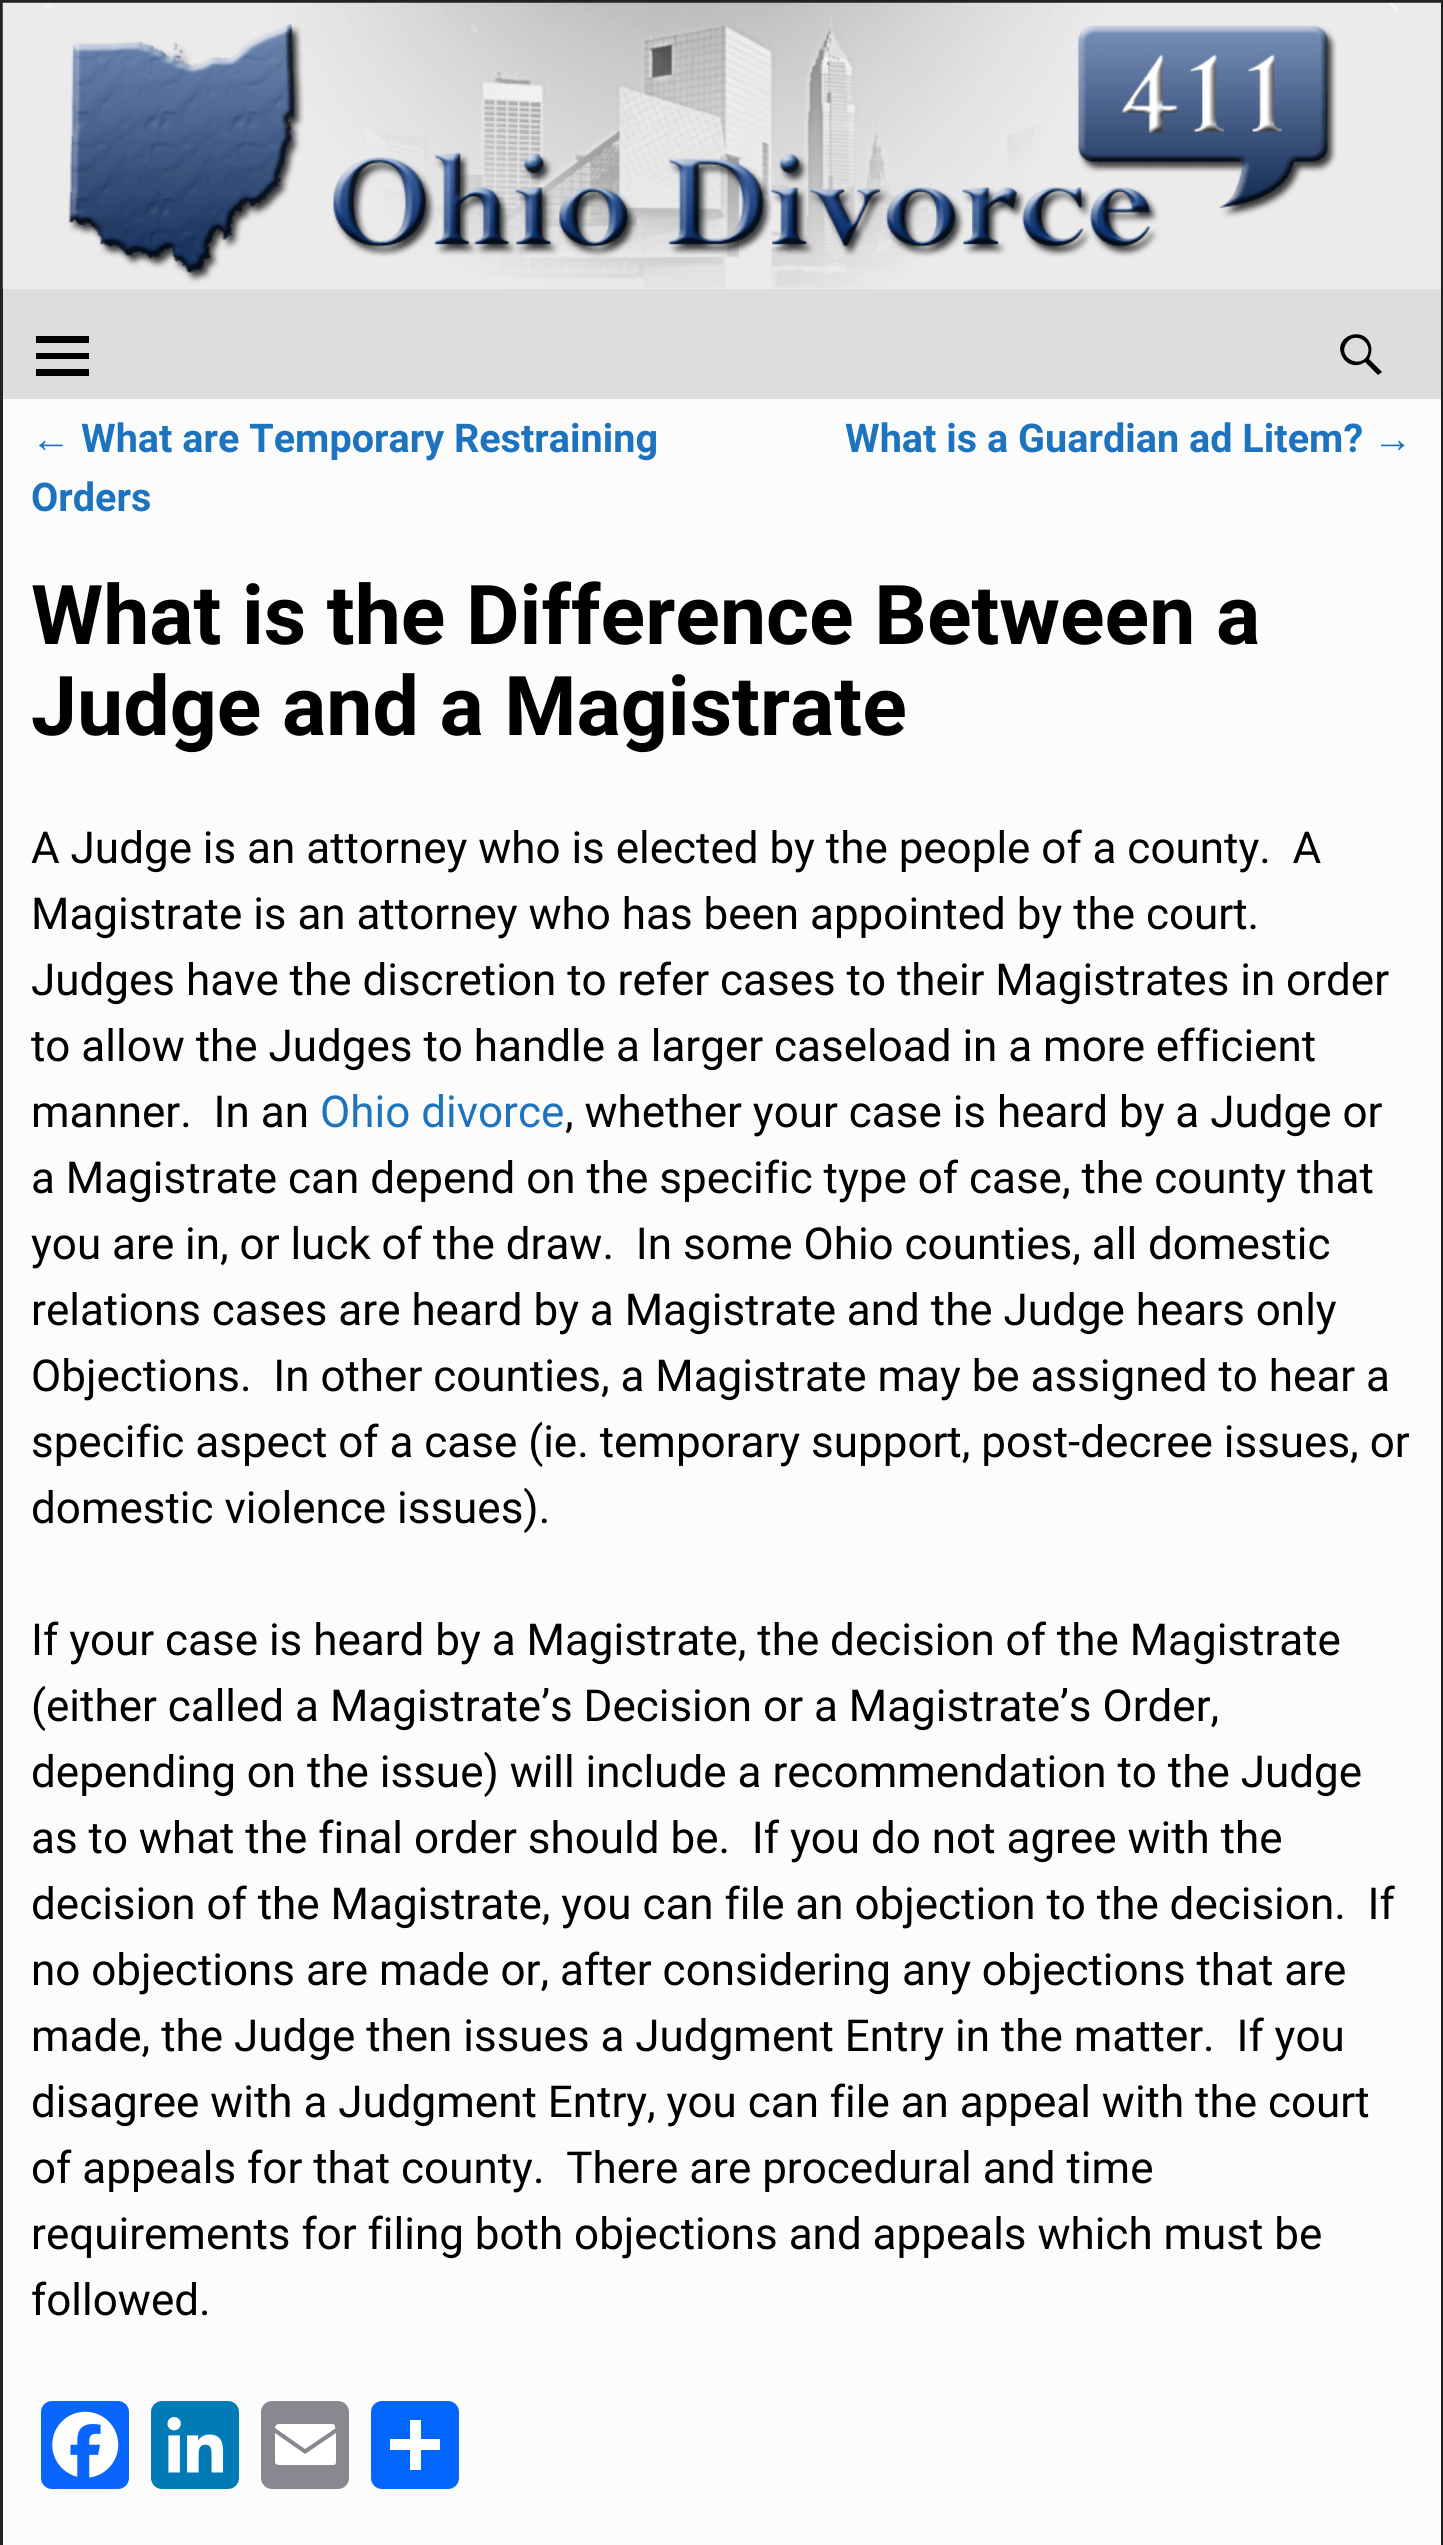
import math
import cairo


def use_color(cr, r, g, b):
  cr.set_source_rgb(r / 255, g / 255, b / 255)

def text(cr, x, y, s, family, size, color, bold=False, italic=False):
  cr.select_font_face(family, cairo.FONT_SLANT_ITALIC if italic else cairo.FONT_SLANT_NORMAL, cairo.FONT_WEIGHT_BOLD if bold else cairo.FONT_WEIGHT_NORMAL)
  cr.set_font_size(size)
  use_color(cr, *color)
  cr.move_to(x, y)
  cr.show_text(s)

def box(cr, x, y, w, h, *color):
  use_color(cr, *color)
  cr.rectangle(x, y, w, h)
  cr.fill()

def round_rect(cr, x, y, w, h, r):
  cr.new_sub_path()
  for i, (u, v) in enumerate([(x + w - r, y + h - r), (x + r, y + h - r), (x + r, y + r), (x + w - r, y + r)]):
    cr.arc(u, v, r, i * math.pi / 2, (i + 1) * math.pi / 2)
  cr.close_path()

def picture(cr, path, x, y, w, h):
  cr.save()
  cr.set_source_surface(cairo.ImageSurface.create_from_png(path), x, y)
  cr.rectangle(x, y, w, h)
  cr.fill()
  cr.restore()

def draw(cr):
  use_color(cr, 252, 252, 252)
  cr.paint()
  cr.rectangle(1.5, 1.5, 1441, 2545)
  use_color(cr, 34, 34, 34)
  cr.set_line_width(3)
  cr.stroke()
  picture(cr, "img_01.png", 2, 2, 1439, 287)
  box(cr, 3, 289, 1438, 110, 221, 221, 221)
  use_color(cr, 0, 0, 0)
  cr.new_path()
  cr.move_to(36, 376)
  cr.line_to(36, 369)
  cr.line_to(89, 369)
  cr.line_to(89, 376)
  cr.close_path()
  cr.move_to(36, 336)
  cr.line_to(89, 336)
  cr.line_to(89, 343)
  cr.line_to(36, 343)
  cr.close_path()
  cr.move_to(36, 359)
  cr.line_to(36, 353)
  cr.line_to(89, 353)
  cr.line_to(89, 359)
  cr.close_path()
  cr.fill()
  cr.new_path()
  cr.move_to(1382, 372)
  cr.line_to(1378, 375)
  cr.line_to(1365, 362)
  cr.curve_to(1357, 368, 1346, 365, 1342, 356)
  cr.curve_to(1332, 336, 1365, 324, 1371, 346)
  cr.curve_to(1372, 350, 1371, 355, 1369, 359)
  cr.close_path()
  cr.move_to(1346, 344)
  cr.curve_to(1338, 357, 1359, 369, 1367, 356)
  cr.curve_to(1374, 342, 1354, 330, 1346, 344)
  cr.close_path()
  cr.fill()
  use_color(cr, 8, 102, 255)
  round_rect(cr, 41, 2401, 88, 88, 11)
  cr.fill()
  picture(cr, "img_02.png", 52, 2411, 67, 67)
  use_color(cr, 0, 123, 181)
  round_rect(cr, 151, 2401, 88, 88, 11)
  cr.fill()
  picture(cr, "img_03.png", 167, 2417, 57, 56)
  use_color(cr, 136, 137, 144)
  round_rect(cr, 261, 2401, 88, 88, 11)
  cr.fill()
  use_color(cr, 255, 255, 255)
  cr.new_path()
  cr.move_to(336, 2461)
  cr.line_to(336, 2433)
  cr.line_to(305, 2454)
  cr.line_to(275, 2433)
  cr.line_to(275, 2461)
  cr.curve_to(275, 2464, 276, 2465, 280, 2465)
  cr.line_to(331, 2465)
  cr.curve_to(335, 2465, 336, 2465, 336, 2461)
  cr.move_to(335, 2428)
  cr.curve_to(335, 2425, 335, 2424, 331, 2424)
  cr.line_to(280, 2424)
  cr.curve_to(276, 2424, 275, 2426, 275, 2428)
  cr.line_to(305, 2449)
  cr.line_to(336, 2428)
  cr.close_path()
  cr.fill()
  use_color(cr, 1, 102, 255)
  round_rect(cr, 371, 2401, 88, 88, 11)
  cr.fill()
  box(cr, 410, 2420, 11, 50, 255, 255, 255)
  box(cr, 390, 2439, 50, 11, 255, 255, 255)
  text(cr, 31, 452, "←", "Liberation Sans", 39.6, (30, 115, 190))
  text(cr, 81, 452, "What are Temporary Restraining", "Roboto", 39.6, (30, 115, 190), bold=True)
  text(cr, 31, 511, "Orders", "Roboto", 39.6, (30, 115, 190), bold=True)
  text(cr, 845, 452, "What is a Guardian ad Litem?", "Roboto", 39.6, (30, 115, 190), bold=True)
  text(cr, 1373, 452, "→", "Liberation Sans", 39.6, (30, 115, 190))
  text(cr, 31, 644, "What is the Difference Between a", "Roboto", 82.5, (0, 0, 0), bold=True)
  text(cr, 31, 735, "Judge and a Magistrate", "Roboto", 82.5, (0, 0, 0), bold=True)
  text(cr, 31, 863, "A Judge is an attorney who is elected by the people of a county.  A", "Roboto", 44, (0, 0, 0))
  text(cr, 31, 929, "Magistrate is an attorney who has been appointed by the court.", "Roboto", 44, (0, 0, 0))
  text(cr, 31, 995, "Judges have the discretion to refer cases to their Magistrates in order", "Roboto", 44, (0, 0, 0))
  text(cr, 31, 1061, "to allow the Judges to handle a larger caseload in a more efficient", "Roboto", 44, (0, 0, 0))
  text(cr, 31, 1127, "manner.  In an", "Roboto", 44, (0, 0, 0))
  text(cr, 320, 1127, "Ohio divorce", "Roboto", 44, (30, 115, 190))
  text(cr, 565, 1127, ", whether your case is heard by a Judge or", "Roboto", 44, (0, 0, 0))
  text(cr, 31, 1193, "a Magistrate can depend on the specific type of case, the county that", "Roboto", 44, (0, 0, 0))
  text(cr, 31, 1259, "you are in, or luck of the draw.  In some Ohio counties, all domestic", "Roboto", 44, (0, 0, 0))
  text(cr, 31, 1325, "relations cases are heard by a Magistrate and the Judge hears only", "Roboto", 44, (0, 0, 0))
  text(cr, 31, 1391, "Objections.  In other counties, a Magistrate may be assigned to hear a", "Roboto", 44, (0, 0, 0))
  text(cr, 31, 1457, "specific aspect of a case (ie. temporary support, post-decree issues, or", "Roboto", 44, (0, 0, 0))
  text(cr, 31, 1523, "domestic violence issues).", "Roboto", 44, (0, 0, 0))
  text(cr, 31, 1655, "If your case is heard by a Magistrate, the decision of the Magistrate", "Roboto", 44, (0, 0, 0))
  text(cr, 31, 1721, "(either called a Magistrate’s Decision or a Magistrate’s Order,", "Roboto", 44, (0, 0, 0))
  text(cr, 31, 1787, "depending on the issue) will include a recommendation to the Judge", "Roboto", 44, (0, 0, 0))
  text(cr, 31, 1853, "as to what the final order should be.  If you do not agree with the", "Roboto", 44, (0, 0, 0))
  text(cr, 31, 1919, "decision of the Magistrate, you can file an objection to the decision.  If", "Roboto", 44, (0, 0, 0))
  text(cr, 31, 1985, "no objections are made or, after considering any objections that are", "Roboto", 44, (0, 0, 0))
  text(cr, 31, 2051, "made, the Judge then issues a Judgment Entry in the matter.  If you", "Roboto", 44, (0, 0, 0))
  text(cr, 31, 2117, "disagree with a Judgment Entry, you can file an appeal with the court", "Roboto", 44, (0, 0, 0))
  text(cr, 31, 2183, "of appeals for that county.  There are procedural and time", "Roboto", 44, (0, 0, 0))
  text(cr, 31, 2249, "requirements for filing both objections and appeals which must be", "Roboto", 44, (0, 0, 0))
  text(cr, 31, 2315, "followed.", "Roboto", 44, (0, 0, 0))


surface = cairo.ImageSurface(cairo.FORMAT_RGB24, 1443, 2545)
cr = cairo.Context(surface)
options = cairo.FontOptions()
options.set_hint_metrics(cairo.HINT_METRICS_OFF)
options.set_hint_style(cairo.HINT_STYLE_NONE)
cr.set_font_options(options)
cr.set_miter_limit(4)
draw(cr)
surface.write_to_png("out.png")
